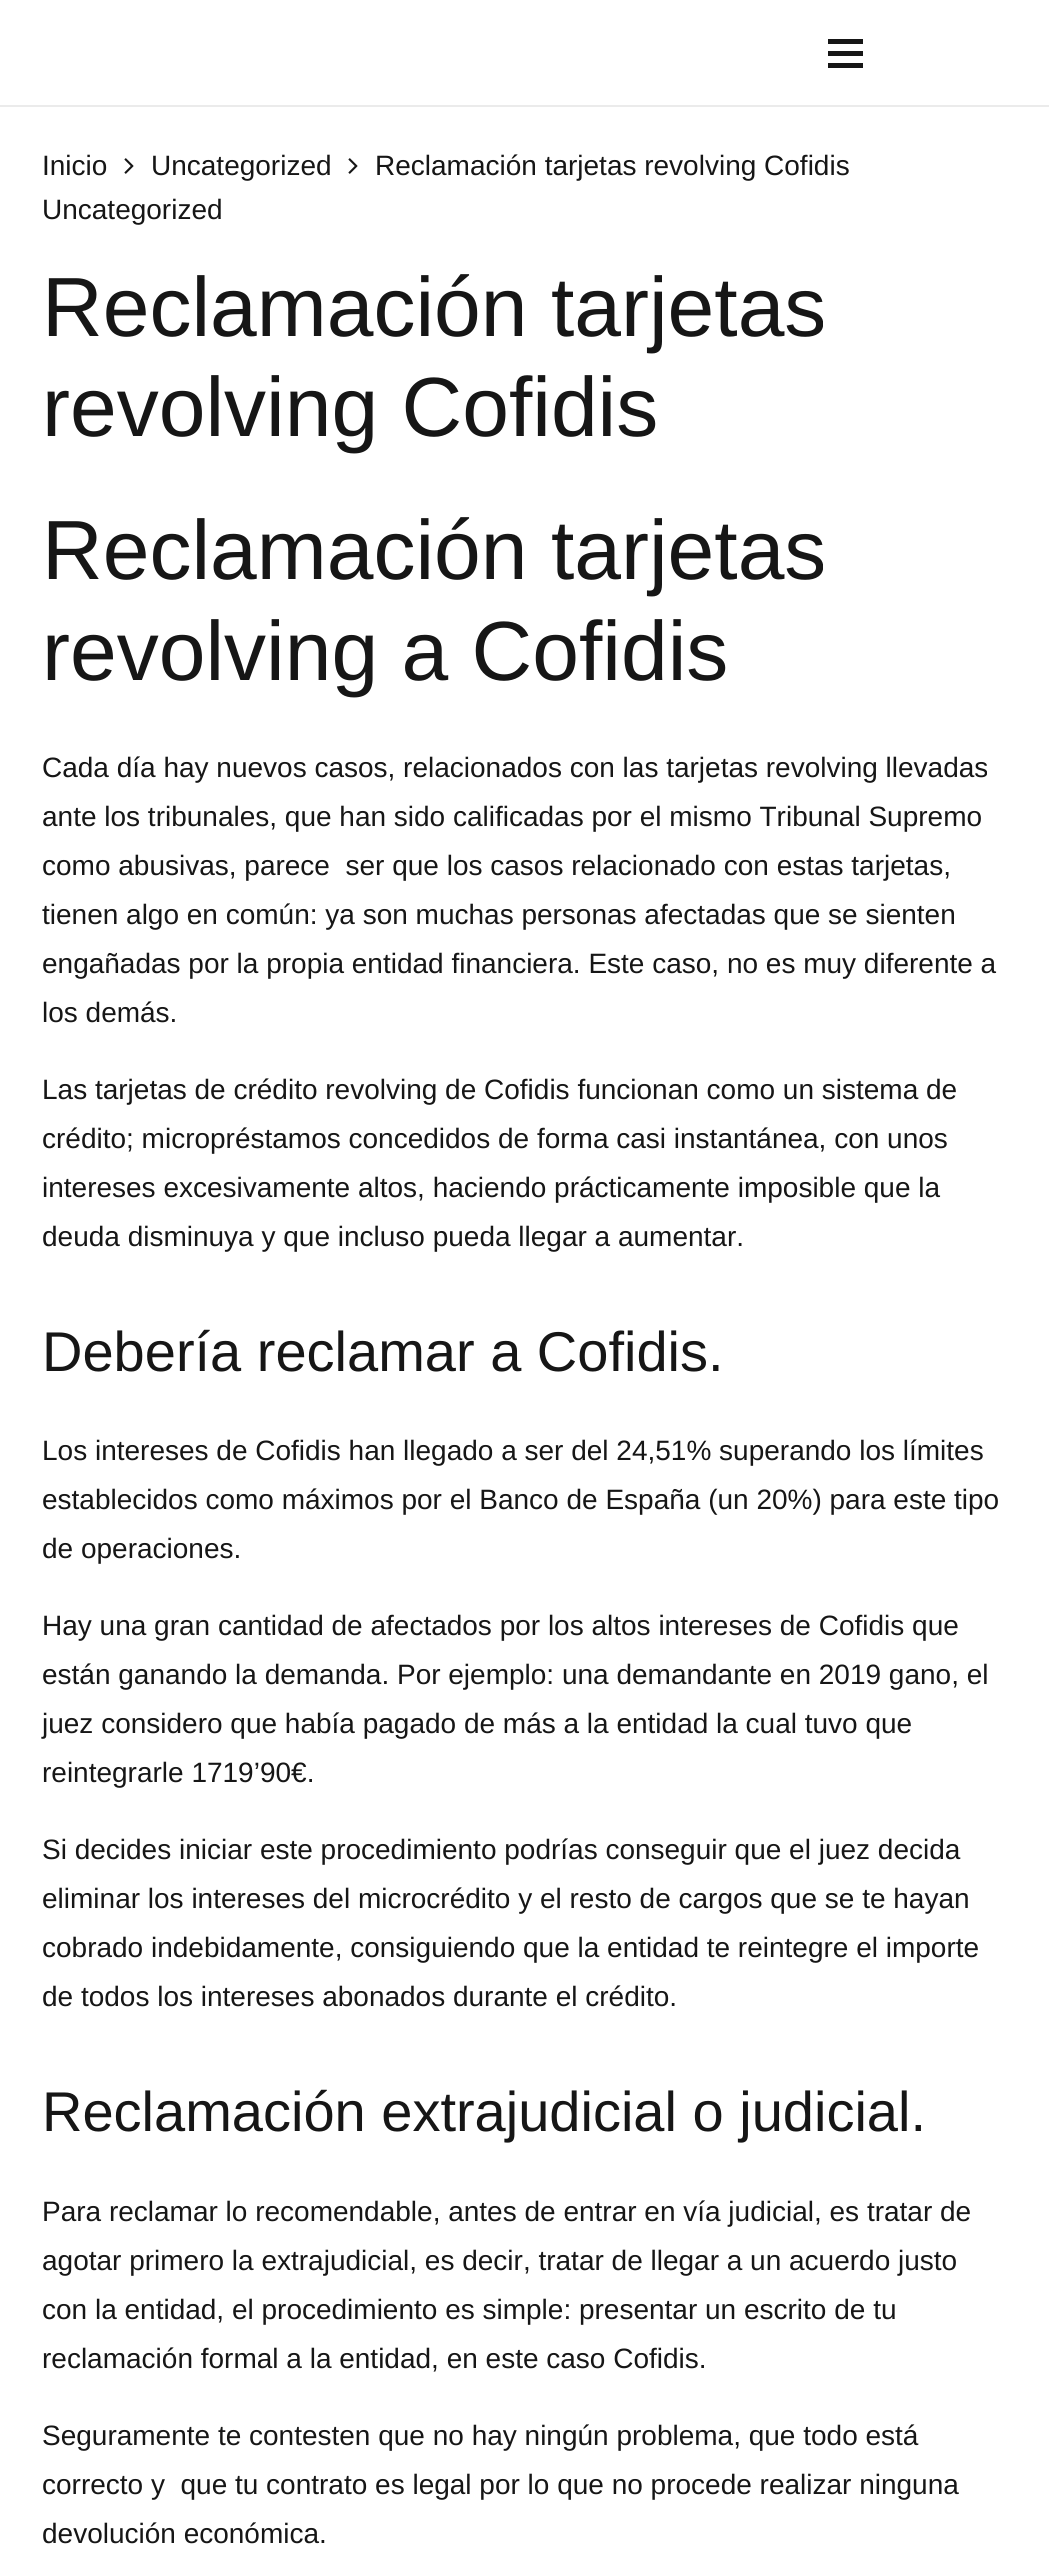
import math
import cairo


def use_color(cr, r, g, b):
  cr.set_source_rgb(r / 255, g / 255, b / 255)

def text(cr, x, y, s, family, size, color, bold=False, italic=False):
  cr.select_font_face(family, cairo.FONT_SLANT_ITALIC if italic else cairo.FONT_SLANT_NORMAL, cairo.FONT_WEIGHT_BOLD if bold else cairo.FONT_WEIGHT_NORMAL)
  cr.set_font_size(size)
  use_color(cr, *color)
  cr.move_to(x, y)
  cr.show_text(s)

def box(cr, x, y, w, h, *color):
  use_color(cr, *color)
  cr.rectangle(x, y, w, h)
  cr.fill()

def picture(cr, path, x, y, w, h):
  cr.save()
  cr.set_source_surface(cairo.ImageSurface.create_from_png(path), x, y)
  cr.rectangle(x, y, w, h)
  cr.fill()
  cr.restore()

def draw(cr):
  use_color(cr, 255, 255, 255)
  cr.paint()
  box(cr, 0, 105, 1049, 2, 235, 235, 235)
  box(cr, 828, 51, 35, 5, 22, 22, 22)
  box(cr, 828, 39, 35, 5, 22, 22, 22)
  box(cr, 828, 63, 35, 5, 22, 22, 22)
  picture(cr, "img_01.png", 124, 158, 10, 16)
  picture(cr, "img_01.png", 348, 158, 10, 16)
  text(cr, 42, 175, "Inicio", "Liberation Sans", 28, (22, 22, 22))
  text(cr, 151, 175, "Uncategorized", "Liberation Sans", 28, (22, 22, 22))
  text(cr, 375, 175, "Reclamación tarjetas revolving Cofidis", "Liberation Sans", 28, (22, 22, 22))
  text(cr, 42, 219, "Uncategorized", "Liberation Sans", 28, (22, 22, 22))
  text(cr, 42, 336, "Reclamación tarjetas", "Liberation Sans", 84, (22, 22, 22))
  text(cr, 42, 436, "revolving Cofidis", "Liberation Sans", 84, (22, 22, 22))
  text(cr, 42, 579, "Reclamación tarjetas", "Liberation Sans", 84, (22, 22, 22))
  text(cr, 42, 680, "revolving a Cofidis", "Liberation Sans", 84, (22, 22, 22))
  text(cr, 42, 777, "Cada día hay nuevos casos, relacionados con las tarjetas revolving llevadas", "Liberation Sans", 28, (22, 22, 22))
  text(cr, 42, 826, "ante los tribunales, que han sido calificadas por el mismo Tribunal Supremo", "Liberation Sans", 28, (22, 22, 22))
  text(cr, 42, 875, "como abusivas, parece  ser que los casos relacionado con estas tarjetas,", "Liberation Sans", 28, (22, 22, 22))
  text(cr, 42, 924, "tienen algo en común: ya son muchas personas afectadas que se sienten", "Liberation Sans", 28, (22, 22, 22))
  text(cr, 42, 973, "engañadas por la propia entidad financiera. Este caso, no es muy diferente a", "Liberation Sans", 28, (22, 22, 22))
  text(cr, 42, 1022, "los demás.", "Liberation Sans", 28, (22, 22, 22))
  text(cr, 42, 1099, "Las tarjetas de crédito revolving de Cofidis funcionan como un sistema de", "Liberation Sans", 28, (22, 22, 22))
  text(cr, 42, 1148, "crédito; micropréstamos concedidos de forma casi instantánea, con unos", "Liberation Sans", 28, (22, 22, 22))
  text(cr, 42, 1197, "intereses excesivamente altos, haciendo prácticamente imposible que la", "Liberation Sans", 28, (22, 22, 22))
  text(cr, 42, 1246, "deuda disminuya y que incluso pueda llegar a aumentar.", "Liberation Sans", 28, (22, 22, 22))
  text(cr, 42, 1371, "Debería reclamar a Cofidis.", "Liberation Sans", 56, (22, 22, 22))
  text(cr, 42, 1460, "Los intereses de Cofidis han llegado a ser del 24,51% superando los límites", "Liberation Sans", 28, (22, 22, 22))
  text(cr, 42, 1509, "establecidos como máximos por el Banco de España (un 20%) para este tipo", "Liberation Sans", 28, (22, 22, 22))
  text(cr, 42, 1558, "de operaciones.", "Liberation Sans", 28, (22, 22, 22))
  text(cr, 42, 1635, "Hay una gran cantidad de afectados por los altos intereses de Cofidis que", "Liberation Sans", 28, (22, 22, 22))
  text(cr, 42, 1684, "están ganando la demanda. Por ejemplo: una demandante en 2019 gano, el", "Liberation Sans", 28, (22, 22, 22))
  text(cr, 42, 1733, "juez considero que había pagado de más a la entidad la cual tuvo que", "Liberation Sans", 28, (22, 22, 22))
  text(cr, 42, 1782, "reintegrarle 1719’90€.", "Liberation Sans", 28, (22, 22, 22))
  text(cr, 42, 1859, "Si decides iniciar este procedimiento podrías conseguir que el juez decida", "Liberation Sans", 28, (22, 22, 22))
  text(cr, 42, 1908, "eliminar los intereses del microcrédito y el resto de cargos que se te hayan", "Liberation Sans", 28, (22, 22, 22))
  text(cr, 42, 1957, "cobrado indebidamente, consiguiendo que la entidad te reintegre el importe", "Liberation Sans", 28, (22, 22, 22))
  text(cr, 42, 2006, "de todos los intereses abonados durante el crédito.", "Liberation Sans", 28, (22, 22, 22))
  text(cr, 42, 2131, "Reclamación extrajudicial o judicial.", "Liberation Sans", 56, (22, 22, 22))
  text(cr, 42, 2221, "Para reclamar lo recomendable, antes de entrar en vía judicial, es tratar de", "Liberation Sans", 28, (22, 22, 22))
  text(cr, 42, 2270, "agotar primero la extrajudicial, es decir, tratar de llegar a un acuerdo justo", "Liberation Sans", 28, (22, 22, 22))
  text(cr, 42, 2319, "con la entidad, el procedimiento es simple: presentar un escrito de tu", "Liberation Sans", 28, (22, 22, 22))
  text(cr, 42, 2368, "reclamación formal a la entidad, en este caso Cofidis.", "Liberation Sans", 28, (22, 22, 22))
  text(cr, 42, 2445, "Seguramente te contesten que no hay ningún problema, que todo está", "Liberation Sans", 28, (22, 22, 22))
  text(cr, 42, 2494, "correcto y  que tu contrato es legal por lo que no procede realizar ninguna", "Liberation Sans", 28, (22, 22, 22))
  text(cr, 42, 2543, "devolución económica.", "Liberation Sans", 28, (22, 22, 22))


surface = cairo.ImageSurface(cairo.FORMAT_RGB24, 1049, 2572)
cr = cairo.Context(surface)
options = cairo.FontOptions()
options.set_hint_metrics(cairo.HINT_METRICS_OFF)
options.set_hint_style(cairo.HINT_STYLE_NONE)
cr.set_font_options(options)
cr.set_miter_limit(4)
draw(cr)
surface.write_to_png("out.png")
